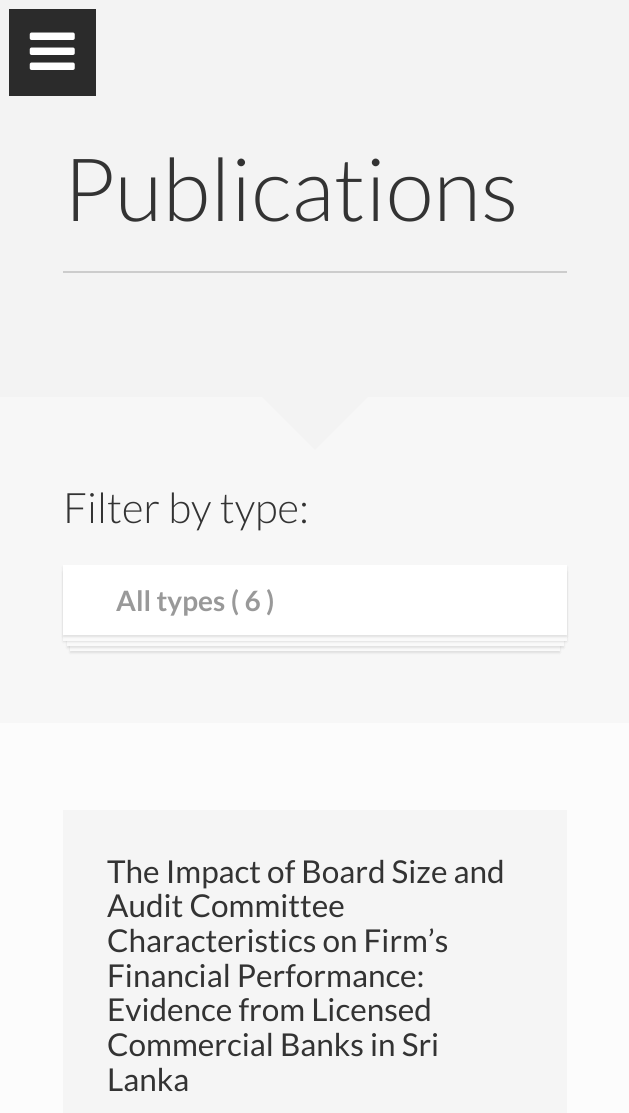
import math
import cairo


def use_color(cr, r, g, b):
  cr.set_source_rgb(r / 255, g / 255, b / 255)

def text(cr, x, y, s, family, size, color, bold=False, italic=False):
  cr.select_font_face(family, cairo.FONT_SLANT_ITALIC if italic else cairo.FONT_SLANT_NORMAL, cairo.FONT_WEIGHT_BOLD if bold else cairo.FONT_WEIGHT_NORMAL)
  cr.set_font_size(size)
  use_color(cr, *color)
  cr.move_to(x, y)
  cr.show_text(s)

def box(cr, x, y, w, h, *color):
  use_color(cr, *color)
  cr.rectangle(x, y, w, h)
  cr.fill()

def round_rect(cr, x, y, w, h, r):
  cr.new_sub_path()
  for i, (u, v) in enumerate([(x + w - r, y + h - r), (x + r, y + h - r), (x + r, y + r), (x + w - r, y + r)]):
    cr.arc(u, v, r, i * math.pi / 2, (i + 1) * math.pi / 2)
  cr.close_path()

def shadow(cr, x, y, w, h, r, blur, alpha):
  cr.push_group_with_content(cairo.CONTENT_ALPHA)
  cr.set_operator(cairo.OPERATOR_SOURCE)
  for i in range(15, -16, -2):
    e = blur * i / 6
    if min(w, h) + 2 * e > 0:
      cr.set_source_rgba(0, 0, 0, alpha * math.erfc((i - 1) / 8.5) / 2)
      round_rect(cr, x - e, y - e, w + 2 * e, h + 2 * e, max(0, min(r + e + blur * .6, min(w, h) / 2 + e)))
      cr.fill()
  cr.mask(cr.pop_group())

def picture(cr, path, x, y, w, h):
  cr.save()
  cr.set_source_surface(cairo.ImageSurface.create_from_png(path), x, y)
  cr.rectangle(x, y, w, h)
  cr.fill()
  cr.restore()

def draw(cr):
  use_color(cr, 247, 247, 247)
  cr.paint()
  box(cr, 0, 0, 629, 397, 243, 243, 243)
  box(cr, 9, 9, 87, 87, 43, 43, 43)
  picture(cr, "img_01.png", 29, 32, 46, 38)
  box(cr, 63, 271, 504, 2, 204, 204, 204)
  use_color(cr, 243, 243, 243)
  cr.new_path()
  cr.move_to(262, 397)
  cr.line_to(368, 397)
  cr.line_to(315, 450)
  cr.close_path()
  cr.fill()
  use_color(cr, 0, 0, 0)
  shadow(cr, 70, 583, 490, 70, 0, 1, 0.1)
  box(cr, 70, 646, 490, 5, 250, 250, 250)
  use_color(cr, 0, 0, 0)
  shadow(cr, 67, 578, 497, 70, 0, 1, 0.1)
  box(cr, 67, 641, 497, 5, 250, 250, 250)
  use_color(cr, 0, 0, 0)
  shadow(cr, 63, 572, 504, 70, 0, 1, 0.1)
  box(cr, 63, 635, 504, 6, 250, 250, 250)
  use_color(cr, 0, 0, 0)
  shadow(cr, 63, 567, 504, 70, 0, 1, 0.1)
  box(cr, 63, 565, 504, 70, 255, 255, 255)
  box(cr, 0, 723, 629, 390, 252, 252, 252)
  box(cr, 63, 810, 504, 303, 245, 245, 245)
  text(cr, 63, 221, "Publications", "Lato Light", 87.5, (51, 51, 51))
  text(cr, 63, 523, "Filter by type:", "Lato Light", 42, (51, 51, 51))
  text(cr, 116, 611, "All types ( 6 )", "Lato", 28, (153, 153, 153), bold=True)
  text(cr, 107, 883, "The Impact of Board Size and", "Lato", 31.5, (51, 51, 51))
  text(cr, 107, 917, "Audit Committee", "Lato", 31.5, (51, 51, 51))
  text(cr, 107, 952, "Characteristics on Firm’s", "Lato", 31.5, (51, 51, 51))
  text(cr, 107, 987, "Financial Performance:", "Lato", 31.5, (51, 51, 51))
  text(cr, 107, 1021, "Evidence from Licensed", "Lato", 31.5, (51, 51, 51))
  text(cr, 107, 1056, "Commercial Banks in Sri", "Lato", 31.5, (51, 51, 51))
  text(cr, 107, 1091, "Lanka", "Lato", 31.5, (51, 51, 51))


surface = cairo.ImageSurface(cairo.FORMAT_RGB24, 629, 1113)
cr = cairo.Context(surface)
options = cairo.FontOptions()
options.set_hint_metrics(cairo.HINT_METRICS_OFF)
options.set_hint_style(cairo.HINT_STYLE_NONE)
cr.set_font_options(options)
cr.set_miter_limit(4)
draw(cr)
surface.write_to_png("out.png")
